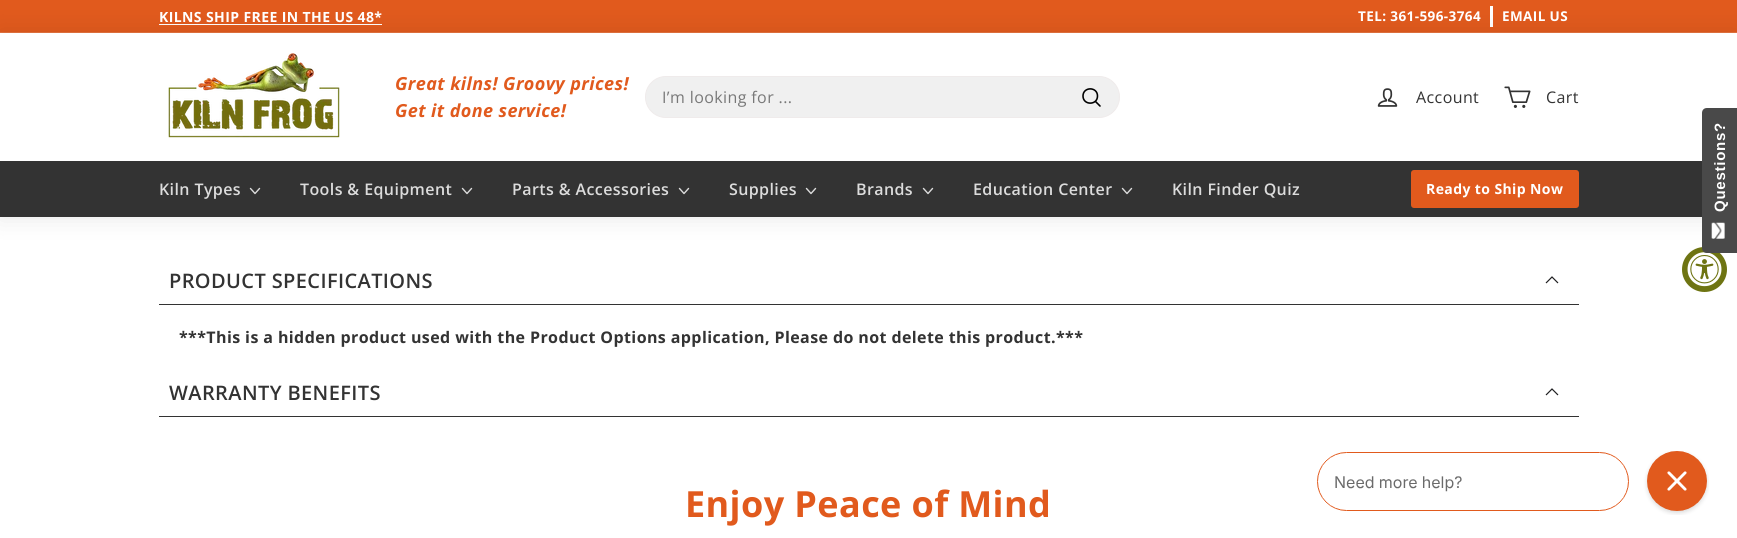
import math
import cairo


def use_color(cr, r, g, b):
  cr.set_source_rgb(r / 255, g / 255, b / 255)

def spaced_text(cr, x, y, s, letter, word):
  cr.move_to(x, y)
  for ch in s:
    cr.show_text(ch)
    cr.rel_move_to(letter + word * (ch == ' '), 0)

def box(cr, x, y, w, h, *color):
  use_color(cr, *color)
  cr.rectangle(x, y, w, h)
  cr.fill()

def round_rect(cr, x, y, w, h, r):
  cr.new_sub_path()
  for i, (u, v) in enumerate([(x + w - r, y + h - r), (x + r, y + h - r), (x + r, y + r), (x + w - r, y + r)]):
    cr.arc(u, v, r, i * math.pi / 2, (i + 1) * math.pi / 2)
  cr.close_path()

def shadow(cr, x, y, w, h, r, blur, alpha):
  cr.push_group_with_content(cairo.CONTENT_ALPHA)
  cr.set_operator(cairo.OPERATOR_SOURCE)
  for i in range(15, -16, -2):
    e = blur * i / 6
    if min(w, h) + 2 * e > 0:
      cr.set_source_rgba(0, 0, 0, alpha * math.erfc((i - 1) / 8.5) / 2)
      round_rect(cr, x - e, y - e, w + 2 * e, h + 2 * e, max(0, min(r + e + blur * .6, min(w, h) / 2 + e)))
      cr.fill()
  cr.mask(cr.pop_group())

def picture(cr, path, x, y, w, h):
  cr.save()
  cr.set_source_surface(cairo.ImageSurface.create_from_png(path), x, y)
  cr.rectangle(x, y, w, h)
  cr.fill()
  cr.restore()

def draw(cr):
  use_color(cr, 255, 255, 255)
  cr.paint()
  box(cr, 0, 0, 1737, 32, 225, 90, 29)
  box(cr, 159, 24, 223, 1, 255, 255, 255)
  box(cr, 1490, 6, 3, 21, 255, 255, 255)
  box(cr, 0, 32, 1737, 1, 230, 115, 63)
  use_color(cr, 0, 0, 0)
  shadow(cr, 0, 33, 1737, 128, 0, 12.5, 0.1)
  shadow(cr, 0, 161, 1737, 56, 0, 12.5, 0.1)
  box(cr, 0, 33, 1737, 128, 255, 255, 255)
  picture(cr, "img_01.png", 168, 53, 172, 85)
  use_color(cr, 240, 240, 240)
  round_rect(cr, 645.5, 76.5, 474, 41, 20.5)
  cr.fill_preserve()
  use_color(cr, 239, 235, 235)
  cr.set_line_width(1)
  cr.stroke()
  cr.new_path()
  cr.move_to(1097.5, 96)
  cr.curve_to(1097.5, 105.5, 1083, 105.5, 1083, 96)
  cr.curve_to(1083, 86.5, 1097.5, 86.5, 1097.5, 96)
  cr.close_path()
  cr.move_to(1100, 106)
  cr.line_to(1095.5, 101.5)
  use_color(cr, 0, 0, 0)
  cr.set_line_width(1.6)
  cr.set_line_cap(cairo.LINE_CAP_ROUND)
  cr.set_line_join(cairo.LINE_JOIN_ROUND)
  cr.stroke()
  picture(cr, "img_02.png", 1377, 88, 21, 19)
  picture(cr, "img_03.png", 1504, 86, 27, 22)
  box(cr, 0, 161, 1702, 56, 51, 51, 51)
  cr.new_path()
  cr.move_to(250.5, 188.5)
  cr.line_to(255, 193.5)
  cr.line_to(259.5, 188.5)
  use_color(cr, 220, 220, 220)
  cr.set_line_width(1.4)
  cr.stroke()
  cr.new_path()
  cr.move_to(462.5, 188.5)
  cr.line_to(467, 193.5)
  cr.line_to(471.5, 188.5)
  cr.stroke()
  cr.new_path()
  cr.move_to(679.5, 188.5)
  cr.line_to(684, 193.5)
  cr.line_to(688.5, 188.5)
  cr.stroke()
  cr.new_path()
  cr.move_to(806.5, 188.5)
  cr.line_to(811, 193.5)
  cr.line_to(815.5, 188.5)
  cr.stroke()
  cr.new_path()
  cr.move_to(923.5, 188.5)
  cr.line_to(928, 193.5)
  cr.line_to(932.5, 188.5)
  cr.stroke()
  cr.new_path()
  cr.move_to(1122.5, 188.5)
  cr.line_to(1127, 193.5)
  cr.line_to(1131.5, 188.5)
  cr.stroke()
  use_color(cr, 225, 90, 29)
  round_rect(cr, 1411, 170, 168, 38, 3)
  cr.fill()
  box(cr, 159, 304, 1420, 1, 51, 51, 51)
  cr.new_path()
  cr.move_to(1546, 283)
  cr.line_to(1552, 277)
  cr.line_to(1558, 283)
  use_color(cr, 31, 31, 33)
  cr.set_line_width(1.2)
  cr.set_line_cap(cairo.LINE_CAP_BUTT)
  cr.set_line_join(cairo.LINE_JOIN_MITER)
  cr.stroke()
  box(cr, 159, 416, 1420, 1, 51, 51, 51)
  cr.new_path()
  cr.move_to(1546, 395)
  cr.line_to(1552, 389)
  cr.line_to(1558, 395)
  use_color(cr, 31, 31, 33)
  cr.stroke()
  use_color(cr, 110, 116, 18)
  cr.arc(1704.5, 269.5, 22.5, 0, 2 * math.pi)
  cr.fill()
  picture(cr, "img_05.png", 1687, 252, 35, 35)
  use_color(cr, 73, 73, 73)
  cr.new_path()
  cr.move_to(1702, 248)
  cr.line_to(1702, 113)
  cr.curve_to(1702, 110, 1704, 108, 1707, 108)
  cr.line_to(1737, 108)
  cr.line_to(1737, 253)
  cr.line_to(1707, 253)
  cr.curve_to(1704, 253, 1702, 251, 1702, 248)
  cr.close_path()
  cr.fill()
  picture(cr, "img_04.png", 1711, 222, 14, 17)
  picture(cr, "img_06.png", 1317, 451, 392, 64)
  cr.select_font_face("Open Sans", cairo.FONT_SLANT_NORMAL, cairo.FONT_WEIGHT_BOLD)
  cr.set_font_size(14)
  use_color(cr, 255, 255, 255)
  spaced_text(cr, 159, 22, "KILNS SHIP FREE IN THE US 48*", 0.4, 0)
  cr.set_font_size(13.5)
  spaced_text(cr, 1358, 21, "TEL: 361-596-3764", 0.4, 0)
  spaced_text(cr, 1502, 21, "EMAIL US", 0.4, 0)
  cr.select_font_face("Open Sans", cairo.FONT_SLANT_ITALIC, cairo.FONT_WEIGHT_BOLD)
  cr.set_font_size(18)
  use_color(cr, 225, 90, 29)
  spaced_text(cr, 395, 90, "Great kilns! Groovy prices!", 0.4, 0)
  spaced_text(cr, 395, 117, "Get it done service!", 0.4, 0)
  cr.select_font_face("Open Sans")
  cr.set_font_size(16)
  use_color(cr, 120, 120, 120)
  spaced_text(cr, 662, 103, "I’m looking for ...", 0.4, 0)
  use_color(cr, 51, 51, 51)
  spaced_text(cr, 1416, 103, "Account", 0.4, 0)
  spaced_text(cr, 1546, 103, "Cart", 0.4, 0)
  cr.select_font_face("Open Sans SemiBold")
  use_color(cr, 220, 220, 220)
  spaced_text(cr, 159, 195, "Kiln Types", 0.4, 0)
  spaced_text(cr, 300, 195, "Tools & Equipment", 0.4, 0)
  spaced_text(cr, 512, 195, "Parts & Accessories", 0.4, 0)
  spaced_text(cr, 729, 195, "Supplies", 0.4, 0)
  spaced_text(cr, 856, 195, "Brands", 0.4, 0)
  spaced_text(cr, 973, 195, "Education Center", 0.4, 0)
  spaced_text(cr, 1172, 195, "Kiln Finder Quiz", 0.4, 0)
  cr.select_font_face("Open Sans", cairo.FONT_SLANT_NORMAL, cairo.FONT_WEIGHT_BOLD)
  cr.set_font_size(14)
  use_color(cr, 255, 255, 255)
  spaced_text(cr, 1426, 194, "Ready to Ship Now", 0.4, 0)
  cr.select_font_face("Open Sans SemiBold")
  cr.set_font_size(20)
  use_color(cr, 51, 51, 51)
  spaced_text(cr, 169, 288, "PRODUCT SPECIFICATIONS", 0.4, 0)
  cr.select_font_face("Open Sans", cairo.FONT_SLANT_NORMAL, cairo.FONT_WEIGHT_BOLD)
  cr.set_font_size(16)
  spaced_text(cr, 179, 343, "***This is a hidden product used with the Product Options application, Please do not delete this product.***", 0.4, 0)
  cr.select_font_face("Open Sans SemiBold")
  cr.set_font_size(20)
  spaced_text(cr, 169, 400, "WARRANTY BENEFITS", 0.4, 0)
  cr.select_font_face("Open Sans", cairo.FONT_SLANT_NORMAL, cairo.FONT_WEIGHT_BOLD)
  cr.set_font_size(36)
  use_color(cr, 225, 90, 29)
  spaced_text(cr, 685, 517, "Enjoy Peace of Mind", 0.4, 0)
  cr.select_font_face("Liberation Sans", cairo.FONT_SLANT_NORMAL, cairo.FONT_WEIGHT_BOLD)
  cr.set_font_size(15)
  use_color(cr, 255, 255, 255)
  cr.save()
  cr.translate(1725, 212)
  cr.rotate(-90 * math.pi / 180)
  spaced_text(cr, 0, 0, "Questions?", 0.75, 0)
  cr.restore()


surface = cairo.ImageSurface(cairo.FORMAT_RGB24, 1737, 538)
cr = cairo.Context(surface)
options = cairo.FontOptions()
options.set_hint_metrics(cairo.HINT_METRICS_OFF)
options.set_hint_style(cairo.HINT_STYLE_NONE)
cr.set_font_options(options)
cr.set_miter_limit(4)
draw(cr)
surface.write_to_png("out.png")
